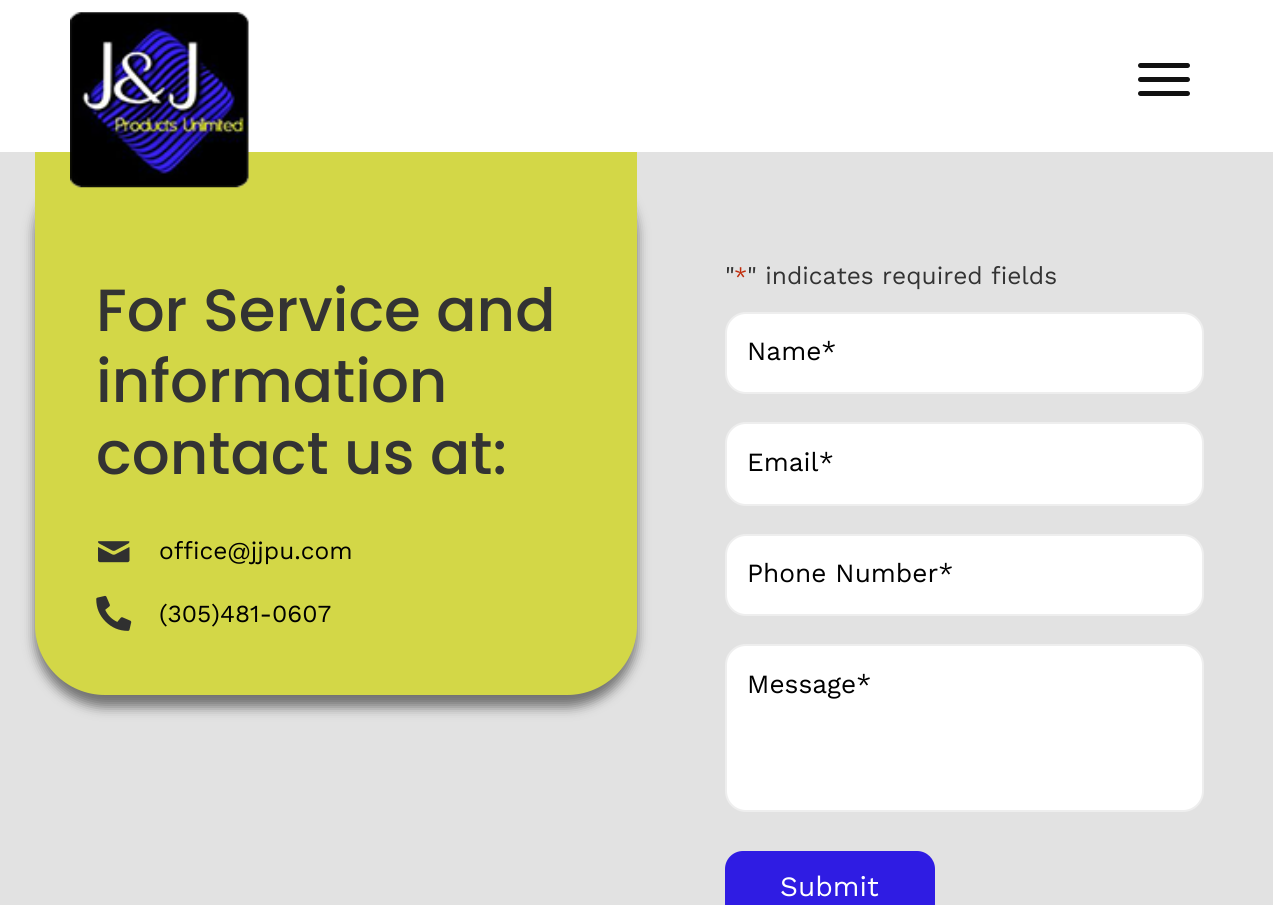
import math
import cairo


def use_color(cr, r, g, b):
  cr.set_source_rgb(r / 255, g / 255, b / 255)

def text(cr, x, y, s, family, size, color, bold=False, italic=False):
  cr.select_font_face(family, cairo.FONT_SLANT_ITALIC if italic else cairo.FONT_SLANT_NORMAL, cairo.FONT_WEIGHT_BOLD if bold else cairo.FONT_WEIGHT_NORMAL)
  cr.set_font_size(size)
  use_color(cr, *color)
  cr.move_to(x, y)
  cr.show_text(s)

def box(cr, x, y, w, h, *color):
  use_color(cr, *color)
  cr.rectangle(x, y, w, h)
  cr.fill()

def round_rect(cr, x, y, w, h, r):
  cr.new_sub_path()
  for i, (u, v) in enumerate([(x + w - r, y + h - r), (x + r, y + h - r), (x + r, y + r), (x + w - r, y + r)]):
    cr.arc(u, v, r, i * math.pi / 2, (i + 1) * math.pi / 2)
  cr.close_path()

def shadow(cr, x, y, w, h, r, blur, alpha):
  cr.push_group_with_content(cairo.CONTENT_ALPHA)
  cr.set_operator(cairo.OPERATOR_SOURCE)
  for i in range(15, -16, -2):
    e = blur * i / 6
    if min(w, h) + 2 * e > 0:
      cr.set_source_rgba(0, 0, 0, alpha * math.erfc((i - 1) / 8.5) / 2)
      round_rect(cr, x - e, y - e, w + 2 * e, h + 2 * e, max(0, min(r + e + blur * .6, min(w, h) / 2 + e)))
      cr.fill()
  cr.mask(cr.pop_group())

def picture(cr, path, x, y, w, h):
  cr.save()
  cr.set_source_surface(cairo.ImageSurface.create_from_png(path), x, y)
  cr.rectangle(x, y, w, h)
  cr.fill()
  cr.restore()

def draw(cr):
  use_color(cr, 255, 255, 255)
  cr.paint()
  box(cr, 0, 152, 1273, 753, 226, 226, 226)
  use_color(cr, 0, 0, 0)
  shadow(cr, 35, 165, 602, 542, 70, 6, 0.5)
  use_color(cr, 211, 215, 71)
  cr.new_path()
  cr.move_to(35, 152)
  cr.line_to(637, 152)
  cr.line_to(637, 625)
  cr.curve_to(637, 663.5, 605.5, 695, 567, 695)
  cr.line_to(105, 695)
  cr.curve_to(66.5, 695, 35, 663.5, 35, 625)
  cr.close_path()
  cr.fill()
  picture(cr, "img_01.png", 70, 12, 179, 176)
  use_color(cr, 17, 17, 17)
  round_rect(cr, 1138, 77, 52, 5, 2.5)
  cr.fill()
  round_rect(cr, 1138, 63, 52, 5, 2.5)
  cr.fill()
  round_rect(cr, 1138, 91, 52, 5, 2.5)
  cr.fill()
  picture(cr, "img_02.png", 98, 541, 32, 22)
  picture(cr, "img_03.png", 96, 595, 36, 36)
  use_color(cr, 255, 255, 255)
  round_rect(cr, 726, 313, 477, 80, 20)
  cr.fill_preserve()
  use_color(cr, 238, 238, 238)
  cr.stroke()
  use_color(cr, 255, 255, 255)
  round_rect(cr, 726, 423, 477, 82, 20)
  cr.fill_preserve()
  use_color(cr, 238, 238, 238)
  cr.stroke()
  use_color(cr, 255, 255, 255)
  round_rect(cr, 726, 535, 477, 80, 20)
  cr.fill_preserve()
  use_color(cr, 238, 238, 238)
  cr.stroke()
  use_color(cr, 255, 255, 255)
  round_rect(cr, 726, 645, 477, 166, 20)
  cr.fill_preserve()
  use_color(cr, 238, 238, 238)
  cr.stroke()
  use_color(cr, 47, 28, 227)
  round_rect(cr, 727, 853, 206, 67, 16)
  cr.fill_preserve()
  cr.set_line_width(4)
  cr.stroke()
  text(cr, 96, 331, "For Service and", "Poppins Medium", 59.5, (51, 51, 51))
  text(cr, 96, 402, "information", "Poppins Medium", 59.5, (51, 51, 51))
  text(cr, 96, 474, "contact us at:", "Poppins Medium", 59.5, (51, 51, 51))
  text(cr, 159, 559, "office@jjpu.com", "Work Sans", 24.5, (0, 0, 0))
  text(cr, 159, 622, "(305)481-0607", "Work Sans", 24.5, (0, 0, 0))
  text(cr, 725, 284, "\"", "Work Sans", 24.5, (51, 51, 51))
  text(cr, 734, 284, "*", "Work Sans", 23, (192, 43, 10))
  text(cr, 747, 284, "\" indicates required fields", "Work Sans", 24.5, (51, 51, 51))
  text(cr, 747, 360, "Name*", "Work Sans", 26.25, (0, 0, 0))
  text(cr, 747, 471, "Email*", "Work Sans", 26.25, (0, 0, 0))
  text(cr, 747, 582, "Phone Number*", "Work Sans", 26.25, (0, 0, 0))
  text(cr, 747, 693, "Message*", "Work Sans", 26.25, (0, 0, 0))
  text(cr, 780, 896, "Submit", "Work Sans", 28, (255, 255, 255))


surface = cairo.ImageSurface(cairo.FORMAT_RGB24, 1273, 905)
cr = cairo.Context(surface)
options = cairo.FontOptions()
options.set_hint_metrics(cairo.HINT_METRICS_OFF)
options.set_hint_style(cairo.HINT_STYLE_NONE)
cr.set_font_options(options)
cr.set_miter_limit(4)
draw(cr)
surface.write_to_png("out.png")
